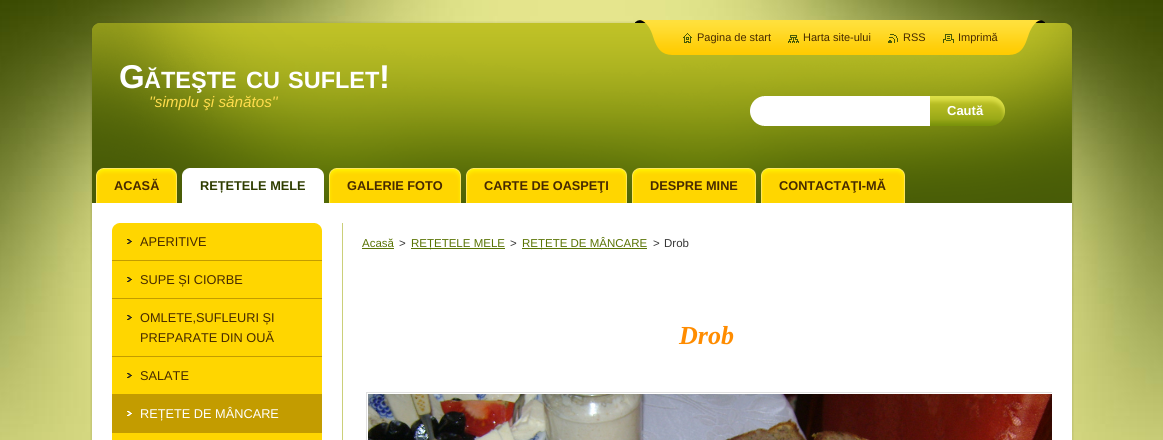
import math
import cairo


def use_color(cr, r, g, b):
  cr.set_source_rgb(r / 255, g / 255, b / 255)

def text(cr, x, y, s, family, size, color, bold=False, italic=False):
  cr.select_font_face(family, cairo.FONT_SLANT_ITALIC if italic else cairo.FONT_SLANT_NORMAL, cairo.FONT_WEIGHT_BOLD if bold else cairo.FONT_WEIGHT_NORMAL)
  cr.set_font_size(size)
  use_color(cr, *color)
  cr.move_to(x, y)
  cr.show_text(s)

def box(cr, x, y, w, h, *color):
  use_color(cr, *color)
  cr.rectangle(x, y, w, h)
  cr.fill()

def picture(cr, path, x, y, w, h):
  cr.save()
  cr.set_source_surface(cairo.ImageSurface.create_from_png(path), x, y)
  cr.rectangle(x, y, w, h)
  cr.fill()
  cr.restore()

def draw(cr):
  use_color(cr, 255, 255, 255)
  cr.paint()
  picture(cr, "img_01.png", 0, 0, 1163, 440)
  picture(cr, "img_08.png", 90, 21, 984, 182)
  picture(cr, "img_02.png", 635, 20, 37, 35)
  picture(cr, "img_03.png", 672, 20, 373, 35)
  picture(cr, "img_04.png", 683, 33, 9, 10)
  picture(cr, "img_05.png", 788, 35, 11, 8)
  picture(cr, "img_06.png", 888, 34, 10, 9)
  picture(cr, "img_07.png", 943, 34, 11, 9)
  picture(cr, "img_09.png", 750, 96, 180, 30)
  picture(cr, "img_10.png", 930, 96, 75, 30)
  picture(cr, "img_11.png", 96, 168, 8, 35)
  picture(cr, "img_12.png", 104, 168, 73, 35)
  picture(cr, "img_13.png", 182, 168, 8, 35)
  picture(cr, "img_14.png", 190, 168, 134, 35)
  picture(cr, "img_15.png", 329, 168, 8, 35)
  picture(cr, "img_16.png", 337, 168, 124, 35)
  picture(cr, "img_17.png", 466, 168, 8, 35)
  picture(cr, "img_18.png", 474, 168, 153, 35)
  picture(cr, "img_19.png", 632, 168, 8, 35)
  picture(cr, "img_20.png", 640, 168, 116, 35)
  picture(cr, "img_21.png", 761, 168, 8, 35)
  picture(cr, "img_22.png", 769, 168, 136, 35)
  picture(cr, "img_23.png", 90, 203, 984, 237)
  box(cr, 342, 223, 1, 217, 203, 207, 121)
  box(cr, 112, 231, 210, 29, 255, 214, 0)
  picture(cr, "img_24.png", 112, 223, 210, 8)
  box(cr, 112, 260, 210, 1, 195, 156, 0)
  picture(cr, "img_25.png", 127, 239, 5, 5)
  box(cr, 112, 261, 210, 37, 255, 214, 0)
  box(cr, 112, 298, 210, 1, 195, 156, 0)
  picture(cr, "img_25.png", 127, 277, 5, 5)
  box(cr, 112, 299, 210, 57, 255, 214, 0)
  box(cr, 112, 356, 210, 1, 195, 156, 0)
  picture(cr, "img_25.png", 127, 315, 5, 5)
  box(cr, 112, 357, 210, 37, 255, 214, 0)
  box(cr, 112, 394, 210, 39, 195, 156, 0)
  picture(cr, "img_25.png", 127, 373, 5, 5)
  picture(cr, "img_26.png", 127, 411, 5, 5)
  box(cr, 112, 433, 210, 7, 255, 214, 0)
  box(cr, 362, 248, 32, 1, 90, 116, 4)
  box(cr, 411, 248, 94, 1, 90, 116, 4)
  box(cr, 522, 248, 125, 1, 90, 116, 4)
  cr.save()
  cr.rectangle(362, 274, 690, 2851)
  cr.clip()
  cr.rectangle(366.5, 392.5, 703, 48)
  use_color(cr, 225, 225, 225)
  cr.set_line_width(1)
  cr.stroke()
  cr.restore()
  picture(cr, "img_27.png", 368, 394, 684, 46)
  text(cr, 697, 41, "Pagina de start", "Liberation Sans", 11, (71, 42, 0))
  text(cr, 803, 41, "Harta site-ului", "Liberation Sans", 11, (71, 42, 0))
  text(cr, 903, 41, "RSS", "Liberation Sans", 11, (71, 42, 0))
  text(cr, 958, 41, "Imprimă", "Liberation Sans", 11, (71, 42, 0))
  text(cr, 119, 88, "G", "Liberation Sans", 33, (255, 255, 255), bold=True)
  text(cr, 144, 88, "ĂTEŞTE", "Liberation Sans", 23.5, (255, 255, 255), bold=True)
  text(cr, 246, 88, "CU", "Liberation Sans", 23.5, (255, 255, 255), bold=True)
  text(cr, 288, 88, "SUFLET", "Liberation Sans", 23.5, (255, 255, 255), bold=True)
  text(cr, 379, 88, "!", "Liberation Sans", 33, (255, 255, 255), bold=True)
  text(cr, 149, 107, "''simplu şi sănătos''", "Liberation Sans", 15.25, (255, 220, 76), italic=True)
  text(cr, 947, 115, "Caută", "Liberation Sans", 13, (255, 255, 255), bold=True)
  text(cr, 114, 190, "ACASĂ", "Liberation Sans", 12.75, (71, 42, 0), bold=True)
  text(cr, 200, 190, "REȚETELE MELE", "Liberation Sans", 12.75, (47, 61, 0), bold=True)
  text(cr, 347, 190, "GALERIE FOTO", "Liberation Sans", 12.75, (71, 42, 0), bold=True)
  text(cr, 484, 190, "CARTE DE OASPEŢI", "Liberation Sans", 12.75, (71, 42, 0), bold=True)
  text(cr, 650, 190, "DESPRE MINE", "Liberation Sans", 12.75, (71, 42, 0), bold=True)
  text(cr, 779, 190, "CONTACTAŢI-MĂ", "Liberation Sans", 12.75, (71, 42, 0), bold=True)
  text(cr, 140, 246, "APERITIVE", "Liberation Sans", 12.75, (71, 42, 0))
  text(cr, 140, 284, "SUPE ȘI CIORBE", "Liberation Sans", 12.75, (71, 42, 0))
  text(cr, 140, 322, "OMLETE,SUFLEURI ȘI", "Liberation Sans", 12.75, (71, 42, 0))
  text(cr, 140, 342, "PREPARATE DIN OUĂ", "Liberation Sans", 12.75, (71, 42, 0))
  text(cr, 140, 380, "SALATE", "Liberation Sans", 12.75, (71, 42, 0))
  text(cr, 140, 418, "REȚETE DE MÂNCARE", "Liberation Sans", 12.75, (255, 255, 255))
  text(cr, 362, 247, "Acasă", "Liberation Sans", 11.5, (90, 116, 4))
  text(cr, 399, 247, ">", "Liberation Sans", 11.5, (54, 54, 54))
  text(cr, 411, 247, "REȚETELE MELE", "Liberation Sans", 11.5, (90, 116, 4))
  text(cr, 510, 247, ">", "Liberation Sans", 11.5, (54, 54, 54))
  text(cr, 522, 247, "REȚETE DE MÂNCARE", "Liberation Sans", 11.5, (90, 116, 4))
  text(cr, 653, 247, ">", "Liberation Sans", 11.5, (54, 54, 54))
  text(cr, 664, 247, "Drob", "Liberation Sans", 11.5, (54, 54, 54))
  text(cr, 679, 344, "Drob", "Liberation Serif", 26, (255, 140, 0), bold=True, italic=True)


surface = cairo.ImageSurface(cairo.FORMAT_RGB24, 1163, 440)
cr = cairo.Context(surface)
options = cairo.FontOptions()
options.set_hint_metrics(cairo.HINT_METRICS_OFF)
options.set_hint_style(cairo.HINT_STYLE_NONE)
cr.set_font_options(options)
cr.set_miter_limit(4)
draw(cr)
surface.write_to_png("out.png")
